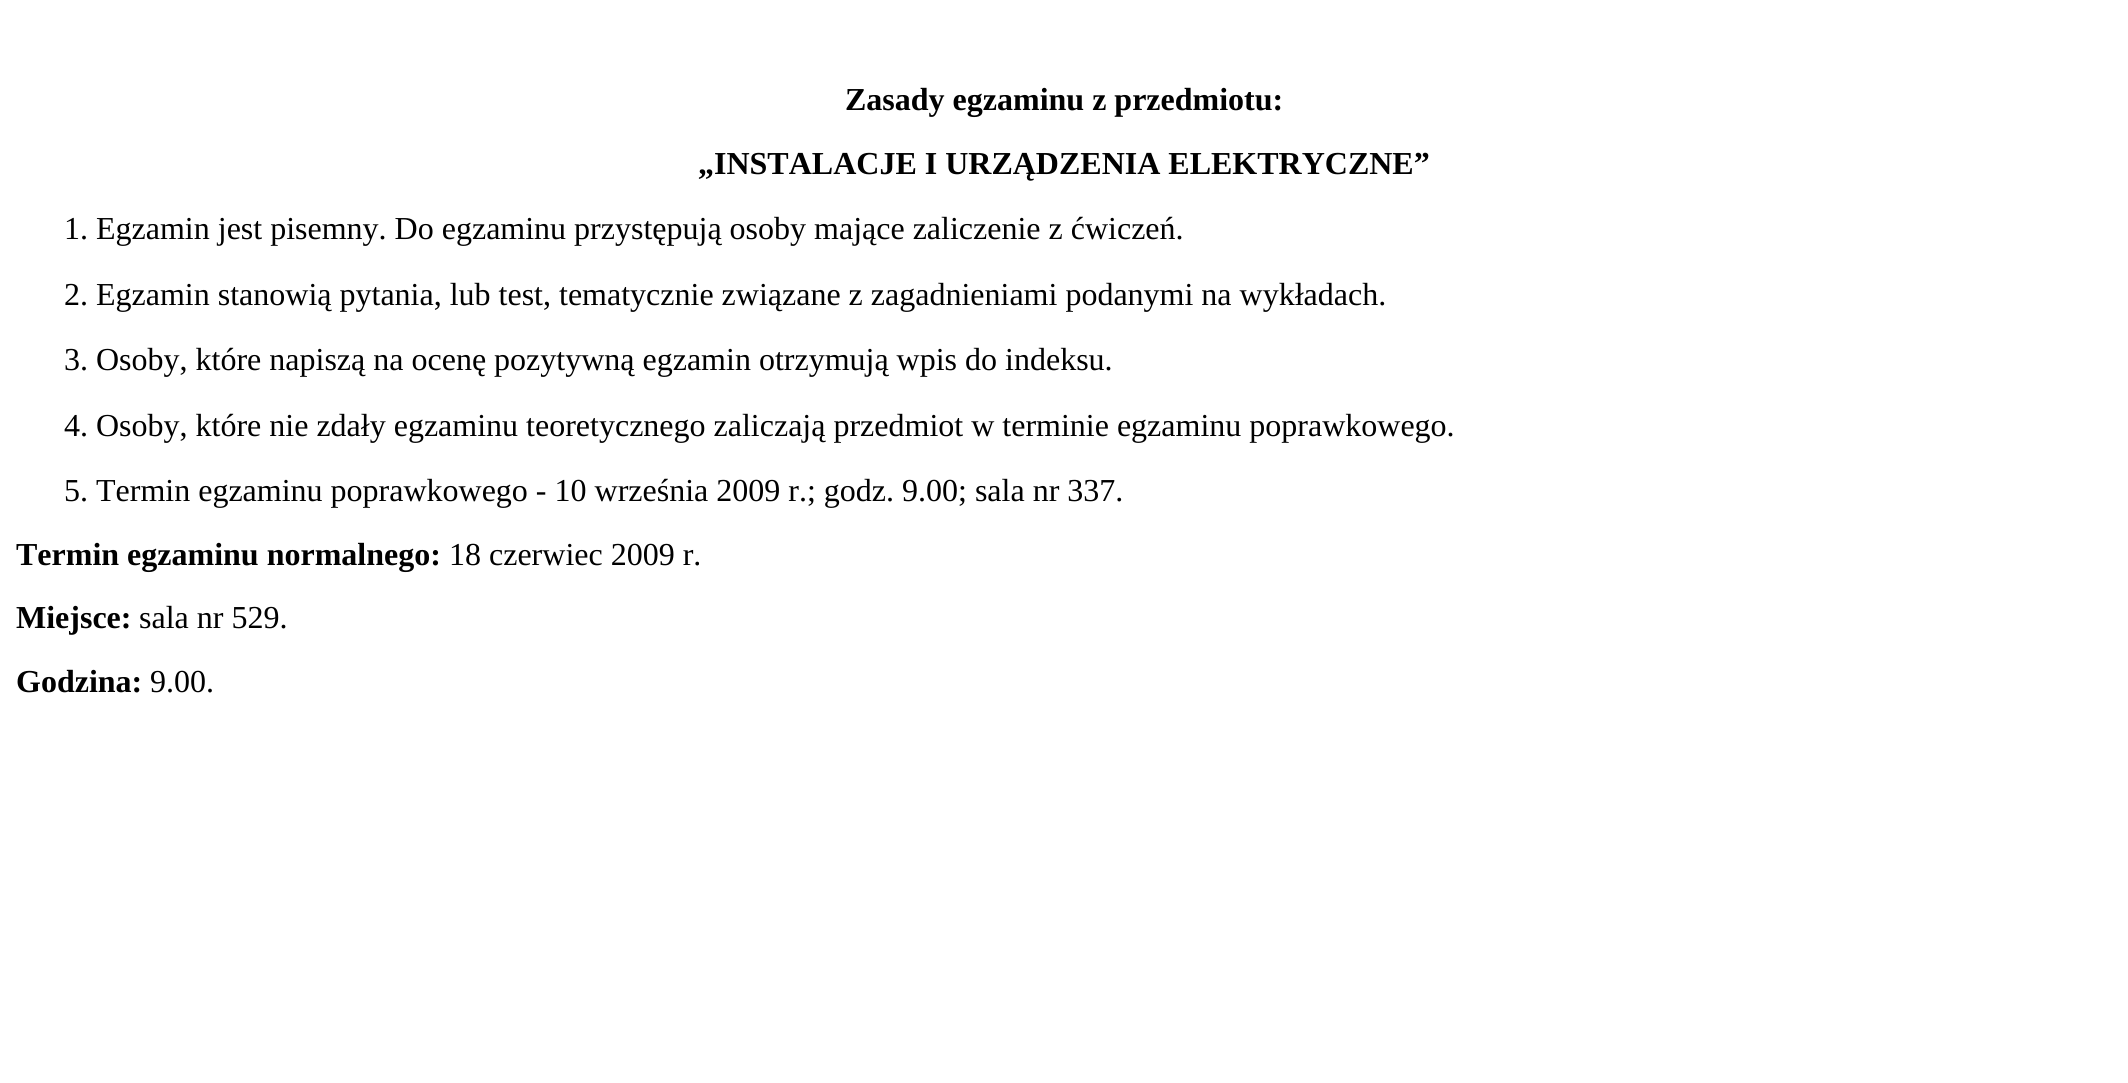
import math
import cairo


def use_color(cr, r, g, b):
  cr.set_source_rgb(r / 255, g / 255, b / 255)

def text(cr, x, y, s, family, size, color, bold=False, italic=False):
  cr.select_font_face(family, cairo.FONT_SLANT_ITALIC if italic else cairo.FONT_SLANT_NORMAL, cairo.FONT_WEIGHT_BOLD if bold else cairo.FONT_WEIGHT_NORMAL)
  cr.set_font_size(size)
  use_color(cr, *color)
  cr.move_to(x, y)
  cr.show_text(s)

def draw(cr):
  use_color(cr, 255, 255, 255)
  cr.paint()
  text(cr, 845, 110, "Zasady egzaminu z przedmiotu:", "Liberation Serif", 32, (0, 0, 0), bold=True)
  text(cr, 698, 174, "„INSTALACJE I URZĄDZENIA ELEKTRYCZNE”", "Liberation Serif", 32, (0, 0, 0), bold=True)
  text(cr, 64, 239, "1. Egzamin jest pisemny. Do egzaminu przystępują osoby mające zaliczenie z ćwiczeń.", "Liberation Serif", 32, (0, 0, 0))
  text(cr, 64, 305, "2. Egzamin stanowią pytania, lub test, tematycznie związane z zagadnieniami podanymi na wykładach.", "Liberation Serif", 32, (0, 0, 0))
  text(cr, 64, 370, "3. Osoby, które napiszą na ocenę pozytywną egzamin otrzymują wpis do indeksu.", "Liberation Serif", 32, (0, 0, 0))
  text(cr, 64, 436, "4. Osoby, które nie zdały egzaminu teoretycznego zaliczają przedmiot w terminie egzaminu poprawkowego.", "Liberation Serif", 32, (0, 0, 0))
  text(cr, 64, 501, "5. Termin egzaminu poprawkowego - 10 września 2009 r.; godz. 9.00; sala nr 337.", "Liberation Serif", 32, (0, 0, 0))
  text(cr, 16, 565, "Termin egzaminu normalnego:", "Liberation Serif", 32, (0, 0, 0), bold=True)
  text(cr, 449, 565, "18 czerwiec 2009 r.", "Liberation Serif", 32, (0, 0, 0))
  text(cr, 16, 628, "Miejsce:", "Liberation Serif", 32, (0, 0, 0), bold=True)
  text(cr, 139, 628, "sala nr 529.", "Liberation Serif", 32, (0, 0, 0))
  text(cr, 16, 692, "Godzina:", "Liberation Serif", 32, (0, 0, 0), bold=True)
  text(cr, 150, 692, "9.00.", "Liberation Serif", 32, (0, 0, 0))


surface = cairo.ImageSurface(cairo.FORMAT_RGB24, 2128, 1083)
cr = cairo.Context(surface)
options = cairo.FontOptions()
options.set_hint_metrics(cairo.HINT_METRICS_OFF)
options.set_hint_style(cairo.HINT_STYLE_NONE)
cr.set_font_options(options)
cr.set_miter_limit(4)
draw(cr)
surface.write_to_png("out.png")
